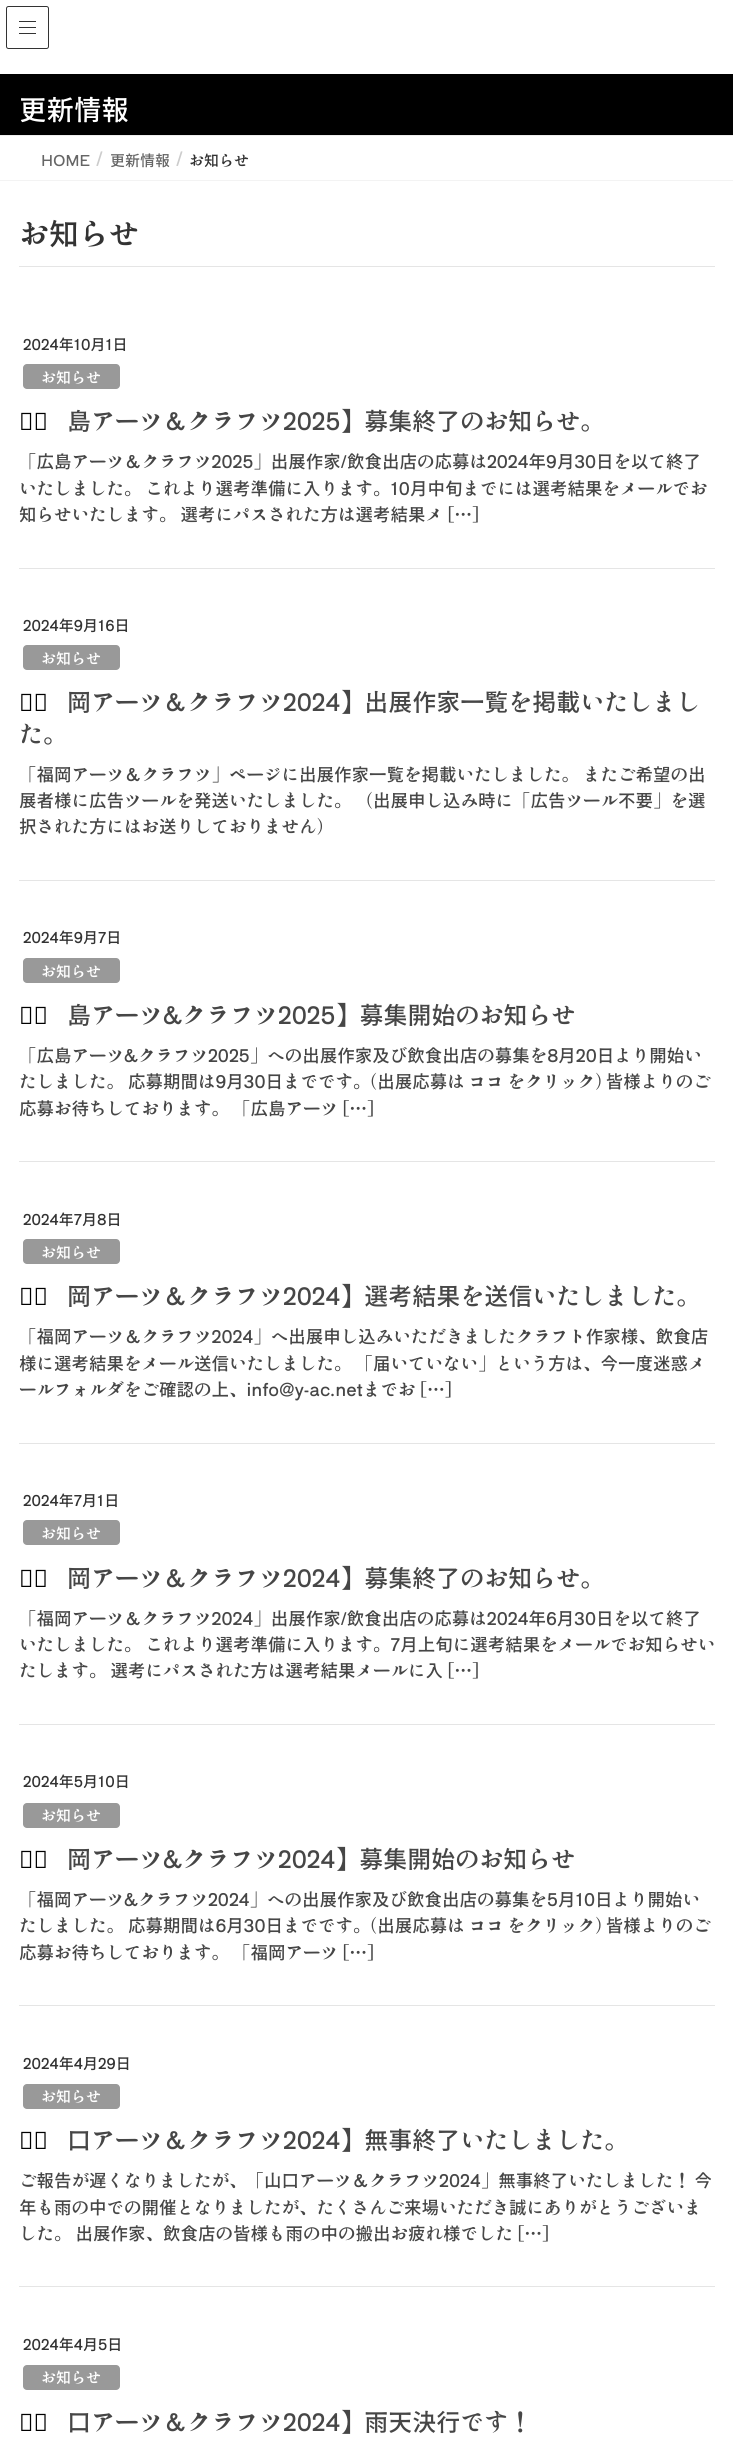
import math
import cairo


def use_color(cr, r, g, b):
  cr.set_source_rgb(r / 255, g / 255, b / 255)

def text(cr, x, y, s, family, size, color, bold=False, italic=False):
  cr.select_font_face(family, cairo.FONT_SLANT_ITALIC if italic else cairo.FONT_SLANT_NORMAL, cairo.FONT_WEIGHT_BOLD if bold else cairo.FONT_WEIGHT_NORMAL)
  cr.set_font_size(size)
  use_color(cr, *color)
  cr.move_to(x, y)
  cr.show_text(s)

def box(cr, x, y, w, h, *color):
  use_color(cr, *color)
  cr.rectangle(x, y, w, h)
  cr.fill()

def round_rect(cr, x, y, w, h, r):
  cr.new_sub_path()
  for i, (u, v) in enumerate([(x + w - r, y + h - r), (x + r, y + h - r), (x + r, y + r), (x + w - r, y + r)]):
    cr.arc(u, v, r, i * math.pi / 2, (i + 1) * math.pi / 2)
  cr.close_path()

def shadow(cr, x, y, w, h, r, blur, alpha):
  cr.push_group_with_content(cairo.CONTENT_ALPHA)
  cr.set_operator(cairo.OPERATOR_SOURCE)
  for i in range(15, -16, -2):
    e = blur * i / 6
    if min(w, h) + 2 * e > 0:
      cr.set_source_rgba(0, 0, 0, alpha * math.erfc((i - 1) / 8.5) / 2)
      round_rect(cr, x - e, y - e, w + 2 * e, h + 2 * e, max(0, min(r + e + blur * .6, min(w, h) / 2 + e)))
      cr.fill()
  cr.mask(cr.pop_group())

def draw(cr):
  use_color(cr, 255, 255, 255)
  cr.paint()
  box(cr, 0, 74, 733, 61, 0, 0, 0)
  use_color(cr, 0, 0, 0)
  shadow(cr, 0, 1, 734, 74, 0, 2, 0.1)
  box(cr, 0, 0, 733, 74, 255, 255, 255)
  box(cr, 19, 21, 17, 1, 51, 51, 51)
  box(cr, 19, 27, 17, 1, 51, 51, 51)
  box(cr, 19, 33, 17, 1, 51, 51, 51)
  round_rect(cr, 6.5, 6.5, 42, 42, 2)
  cr.set_line_width(1)
  cr.stroke()
  box(cr, 0, 135, 733, 1, 238, 238, 238)
  box(cr, 0, 180, 733, 1, 243, 243, 243)
  box(cr, 19, 266, 696, 1, 229, 229, 229)
  box(cr, 19, 568, 696, 1, 229, 229, 229)
  use_color(cr, 153, 153, 153)
  round_rect(cr, 23, 364, 97, 25, 4)
  cr.fill()
  box(cr, 19, 880, 696, 1, 229, 229, 229)
  use_color(cr, 153, 153, 153)
  round_rect(cr, 23, 645, 97, 25, 4)
  cr.fill()
  box(cr, 19, 1161, 696, 1, 229, 229, 229)
  use_color(cr, 153, 153, 153)
  round_rect(cr, 23, 958, 97, 25, 4)
  cr.fill()
  box(cr, 19, 1443, 696, 1, 229, 229, 229)
  use_color(cr, 153, 153, 153)
  round_rect(cr, 23, 1239, 97, 25, 4)
  cr.fill()
  box(cr, 19, 1724, 696, 1, 229, 229, 229)
  use_color(cr, 153, 153, 153)
  round_rect(cr, 23, 1520, 97, 25, 4)
  cr.fill()
  box(cr, 19, 2005, 696, 1, 229, 229, 229)
  use_color(cr, 153, 153, 153)
  round_rect(cr, 23, 1803, 97, 25, 4)
  cr.fill()
  box(cr, 19, 2286, 696, 1, 229, 229, 229)
  use_color(cr, 153, 153, 153)
  round_rect(cr, 23, 2084, 97, 25, 4)
  cr.fill()
  round_rect(cr, 23, 2365, 97, 25, 4)
  cr.fill()
  text(cr, 19, 120, "更新情報", "Shippori Antique B1", 27.5, (255, 255, 255))
  text(cr, 41, 166, "HOME", "Shippori Antique B1", 15, (102, 102, 102))
  text(cr, 96, 166, "/", "Shippori Antique B1", 20, (204, 204, 204))
  text(cr, 110, 166, "更新情報", "Shippori Antique B1", 15, (102, 102, 102))
  text(cr, 176, 166, "/", "Shippori Antique B1", 20, (204, 204, 204))
  text(cr, 189, 166, "お知らせ", "Shippori Antique B1", 15, (51, 51, 51))
  text(cr, 19, 245, "お知らせ", "Shippori Antique", 30, (51, 51, 51))
  text(cr, 23, 350, "2024年10月1日", "Shippori Antique B1", 15, (51, 51, 51))
  text(cr, 41, 383, "お知らせ", "Shippori Antique B1", 15, (255, 255, 255))
  text(cr, 19, 430, "【広", "Noto Sans", 24, (0, 0, 0))
  text(cr, 67, 430, "島アーツ＆クラフツ2025】募集終了のお知らせ。", "Shippori Antique", 24, (70, 70, 70))
  text(cr, 19, 468, "「広島アーツ＆クラフツ2025」出展作家/飲食出店の応募は2024年9月30日を以て終了", "Shippori Antique B1", 17.5, (70, 70, 70))
  text(cr, 19, 495, "いたしました。 これより選考準備に入ります。10月中旬までには選考結果をメールでお", "Shippori Antique B1", 17.5, (70, 70, 70))
  text(cr, 19, 521, "知らせいたします。 選考にパスされた方は選考結果メ […]", "Shippori Antique B1", 17.5, (70, 70, 70))
  text(cr, 23, 631, "2024年9月16日", "Shippori Antique B1", 15, (51, 51, 51))
  text(cr, 41, 664, "お知らせ", "Shippori Antique B1", 15, (255, 255, 255))
  text(cr, 19, 711, "【福", "Noto Sans", 24, (0, 0, 0))
  text(cr, 67, 711, "岡アーツ＆クラフツ2024】出展作家一覧を掲載いたしまし", "Shippori Antique", 24, (70, 70, 70))
  text(cr, 19, 743, "た。", "Shippori Antique", 24, (70, 70, 70))
  text(cr, 19, 781, "「福岡アーツ＆クラフツ」ページに出展作家一覧を掲載いたしました。 またご希望の出", "Shippori Antique B1", 17.5, (70, 70, 70))
  text(cr, 19, 807, "展者様に広告ツールを発送いたしました。 （出展申し込み時に「広告ツール不要」を選", "Shippori Antique B1", 17.5, (70, 70, 70))
  text(cr, 19, 833, "択された方にはお送りしておりません）", "Shippori Antique B1", 17.5, (70, 70, 70))
  text(cr, 23, 943, "2024年9月7日", "Shippori Antique B1", 15, (51, 51, 51))
  text(cr, 41, 977, "お知らせ", "Shippori Antique B1", 15, (255, 255, 255))
  text(cr, 19, 1024, "【広", "Noto Sans", 24, (0, 0, 0))
  text(cr, 67, 1024, "島アーツ&クラフツ2025】募集開始のお知らせ", "Shippori Antique", 24, (70, 70, 70))
  text(cr, 19, 1062, "「広島アーツ&クラフツ2025」への出展作家及び飲食出店の募集を8月20日より開始い", "Shippori Antique B1", 17.5, (70, 70, 70))
  text(cr, 19, 1088, "たしました。 応募期間は9月30日までです。(出展応募は ココ をクリック) 皆様よりのご", "Shippori Antique B1", 17.5, (70, 70, 70))
  text(cr, 19, 1115, "応募お待ちしております。 「広島アーツ […]", "Shippori Antique B1", 17.5, (70, 70, 70))
  text(cr, 23, 1225, "2024年7月8日", "Shippori Antique B1", 15, (51, 51, 51))
  text(cr, 41, 1258, "お知らせ", "Shippori Antique B1", 15, (255, 255, 255))
  text(cr, 19, 1305, "【福", "Noto Sans", 24, (0, 0, 0))
  text(cr, 67, 1305, "岡アーツ＆クラフツ2024】選考結果を送信いたしました。", "Shippori Antique", 24, (70, 70, 70))
  text(cr, 19, 1343, "「福岡アーツ＆クラフツ2024」へ出展申し込みいただきましたクラフト作家様、飲食店", "Shippori Antique B1", 17.5, (70, 70, 70))
  text(cr, 19, 1370, "様に選考結果をメール送信いたしました。 「届いていない」という方は、今一度迷惑メ", "Shippori Antique B1", 17.5, (70, 70, 70))
  text(cr, 19, 1396, "ールフォルダをご確認の上、info@y-ac.netまでお […]", "Shippori Antique B1", 17.5, (70, 70, 70))
  text(cr, 23, 1506, "2024年7月1日", "Shippori Antique B1", 15, (51, 51, 51))
  text(cr, 41, 1539, "お知らせ", "Shippori Antique B1", 15, (255, 255, 255))
  text(cr, 19, 1587, "【福", "Noto Sans", 24, (0, 0, 0))
  text(cr, 67, 1587, "岡アーツ＆クラフツ2024】募集終了のお知らせ。", "Shippori Antique", 24, (70, 70, 70))
  text(cr, 19, 1625, "「福岡アーツ＆クラフツ2024」出展作家/飲食出店の応募は2024年6月30日を以て終了", "Shippori Antique B1", 17.5, (70, 70, 70))
  text(cr, 19, 1651, "いたしました。 これより選考準備に入ります。7月上旬に選考結果をメールでお知らせい", "Shippori Antique B1", 17.5, (70, 70, 70))
  text(cr, 19, 1677, "たします。 選考にパスされた方は選考結果メールに入 […]", "Shippori Antique B1", 17.5, (70, 70, 70))
  text(cr, 23, 1787, "2024年5月10日", "Shippori Antique B1", 15, (51, 51, 51))
  text(cr, 41, 1821, "お知らせ", "Shippori Antique B1", 15, (255, 255, 255))
  text(cr, 19, 1868, "【福", "Noto Sans", 24, (0, 0, 0))
  text(cr, 67, 1868, "岡アーツ&クラフツ2024】募集開始のお知らせ", "Shippori Antique", 24, (70, 70, 70))
  text(cr, 19, 1906, "「福岡アーツ&クラフツ2024」への出展作家及び飲食出店の募集を5月10日より開始い", "Shippori Antique B1", 17.5, (70, 70, 70))
  text(cr, 19, 1932, "たしました。 応募期間は6月30日までです。(出展応募は ココ をクリック) 皆様よりのご", "Shippori Antique B1", 17.5, (70, 70, 70))
  text(cr, 19, 1959, "応募お待ちしております。 「福岡アーツ […]", "Shippori Antique B1", 17.5, (70, 70, 70))
  text(cr, 23, 2069, "2024年4月29日", "Shippori Antique B1", 15, (51, 51, 51))
  text(cr, 41, 2102, "お知らせ", "Shippori Antique B1", 15, (255, 255, 255))
  text(cr, 19, 2149, "【山", "Noto Sans", 24, (0, 0, 0))
  text(cr, 67, 2149, "口アーツ＆クラフツ2024】無事終了いたしました。", "Shippori Antique", 24, (70, 70, 70))
  text(cr, 19, 2187, "ご報告が遅くなりましたが、「山口アーツ＆クラフツ2024」無事終了いたしました！ 今", "Shippori Antique B1", 17.5, (70, 70, 70))
  text(cr, 19, 2214, "年も雨の中での開催となりましたが、たくさんご来場いただき誠にありがとうございま", "Shippori Antique B1", 17.5, (70, 70, 70))
  text(cr, 19, 2240, "した。 出展作家、飲食店の皆様も雨の中の搬出お疲れ様でした […]", "Shippori Antique B1", 17.5, (70, 70, 70))
  text(cr, 23, 2350, "2024年4月5日", "Shippori Antique B1", 15, (51, 51, 51))
  text(cr, 41, 2383, "お知らせ", "Shippori Antique B1", 15, (255, 255, 255))
  text(cr, 19, 2431, "【山", "Noto Sans", 24, (0, 0, 0))
  text(cr, 67, 2431, "口アーツ＆クラフツ2024】雨天決行です！", "Shippori Antique", 24, (70, 70, 70))


surface = cairo.ImageSurface(cairo.FORMAT_RGB24, 733, 2445)
cr = cairo.Context(surface)
options = cairo.FontOptions()
options.set_hint_metrics(cairo.HINT_METRICS_OFF)
options.set_hint_style(cairo.HINT_STYLE_NONE)
cr.set_font_options(options)
cr.set_miter_limit(4)
draw(cr)
surface.write_to_png("out.png")
